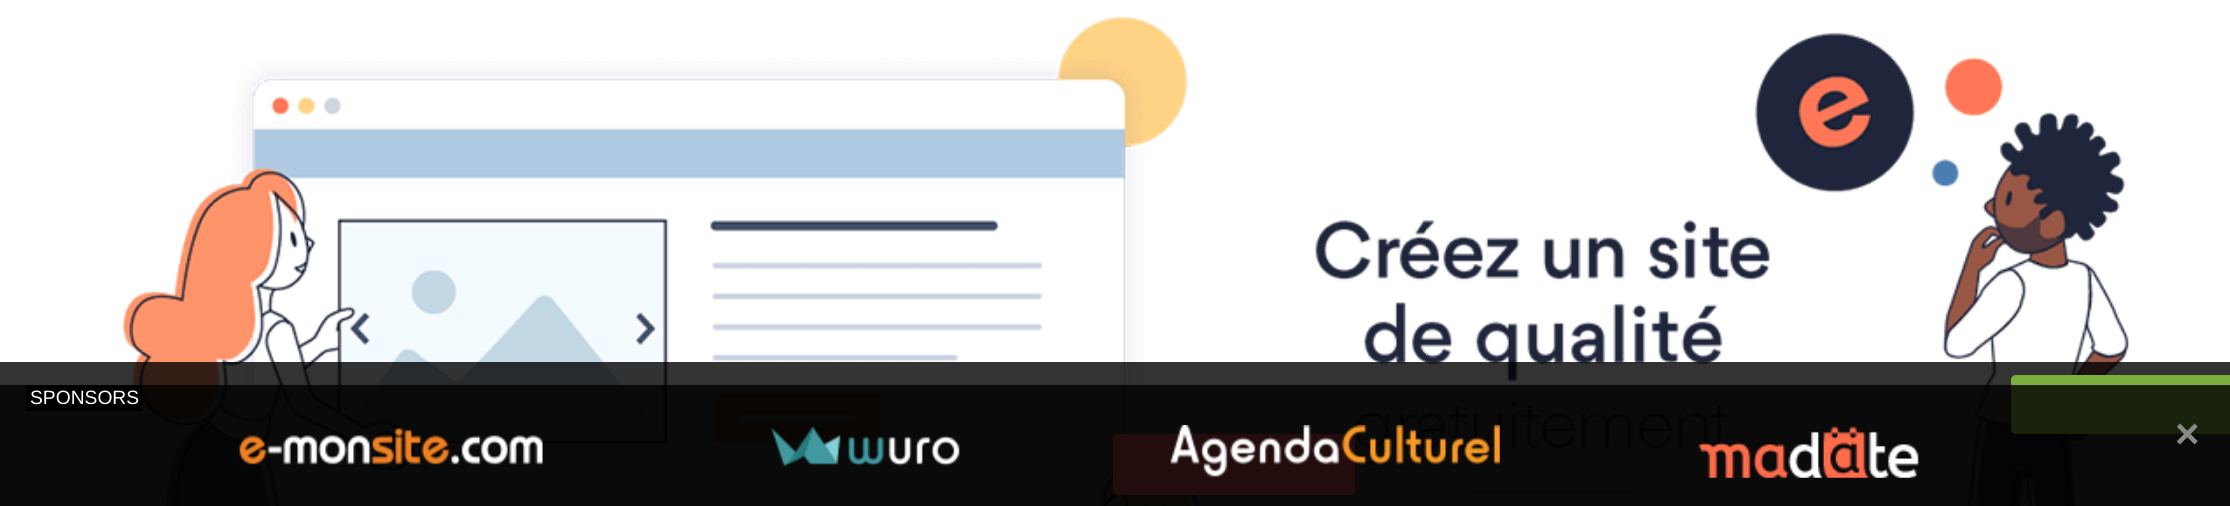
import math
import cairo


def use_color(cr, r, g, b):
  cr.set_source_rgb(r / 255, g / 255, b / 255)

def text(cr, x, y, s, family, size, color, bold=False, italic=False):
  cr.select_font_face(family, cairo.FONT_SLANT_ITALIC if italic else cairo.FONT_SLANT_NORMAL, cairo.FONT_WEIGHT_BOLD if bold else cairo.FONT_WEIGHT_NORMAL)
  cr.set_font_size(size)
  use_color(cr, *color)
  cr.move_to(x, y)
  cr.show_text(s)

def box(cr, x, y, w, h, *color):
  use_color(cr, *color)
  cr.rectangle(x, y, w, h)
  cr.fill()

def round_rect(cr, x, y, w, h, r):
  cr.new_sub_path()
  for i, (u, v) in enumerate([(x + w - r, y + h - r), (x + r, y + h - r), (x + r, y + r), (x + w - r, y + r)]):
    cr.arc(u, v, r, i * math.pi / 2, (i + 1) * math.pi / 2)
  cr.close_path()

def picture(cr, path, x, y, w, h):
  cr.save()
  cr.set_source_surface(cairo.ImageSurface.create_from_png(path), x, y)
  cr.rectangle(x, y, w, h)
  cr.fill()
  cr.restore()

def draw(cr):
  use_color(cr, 255, 255, 255)
  cr.paint()
  picture(cr, "img_01.png", 122, 17, 2008, 489)
  cr.set_source_rgba(0, 0, 0, 0.8)
  cr.rectangle(0, 362, 2230, 144)
  cr.fill()
  use_color(cr, 125, 175, 59)
  round_rect(cr, 2011, 375, 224, 59, 5)
  cr.fill()
  use_color(cr, 175, 59, 59)
  round_rect(cr, 1113, 434, 242, 61, 5)
  cr.fill()
  cr.set_source_rgba(0, 0, 0, 0.8)
  cr.rectangle(0, 385, 2230, 121)
  cr.fill()
  box(cr, 26, 385, 116, 26, 0, 0, 0)
  picture(cr, "img_02.png", 239, 428, 304, 37)
  picture(cr, "img_03.png", 771, 426, 189, 41)
  picture(cr, "img_04.png", 1170, 425, 330, 53)
  picture(cr, "img_05.png", 1698, 426, 221, 52)
  text(cr, 30, 404, "SPONSORS", "Liberation Sans", 19.25, (255, 255, 255))
  text(cr, 2175, 448, "×", "Liberation Sans", 42, (136, 139, 133), bold=True)


surface = cairo.ImageSurface(cairo.FORMAT_RGB24, 2230, 506)
cr = cairo.Context(surface)
options = cairo.FontOptions()
options.set_hint_metrics(cairo.HINT_METRICS_OFF)
options.set_hint_style(cairo.HINT_STYLE_NONE)
cr.set_font_options(options)
cr.set_miter_limit(4)
draw(cr)
surface.write_to_png("out.png")
